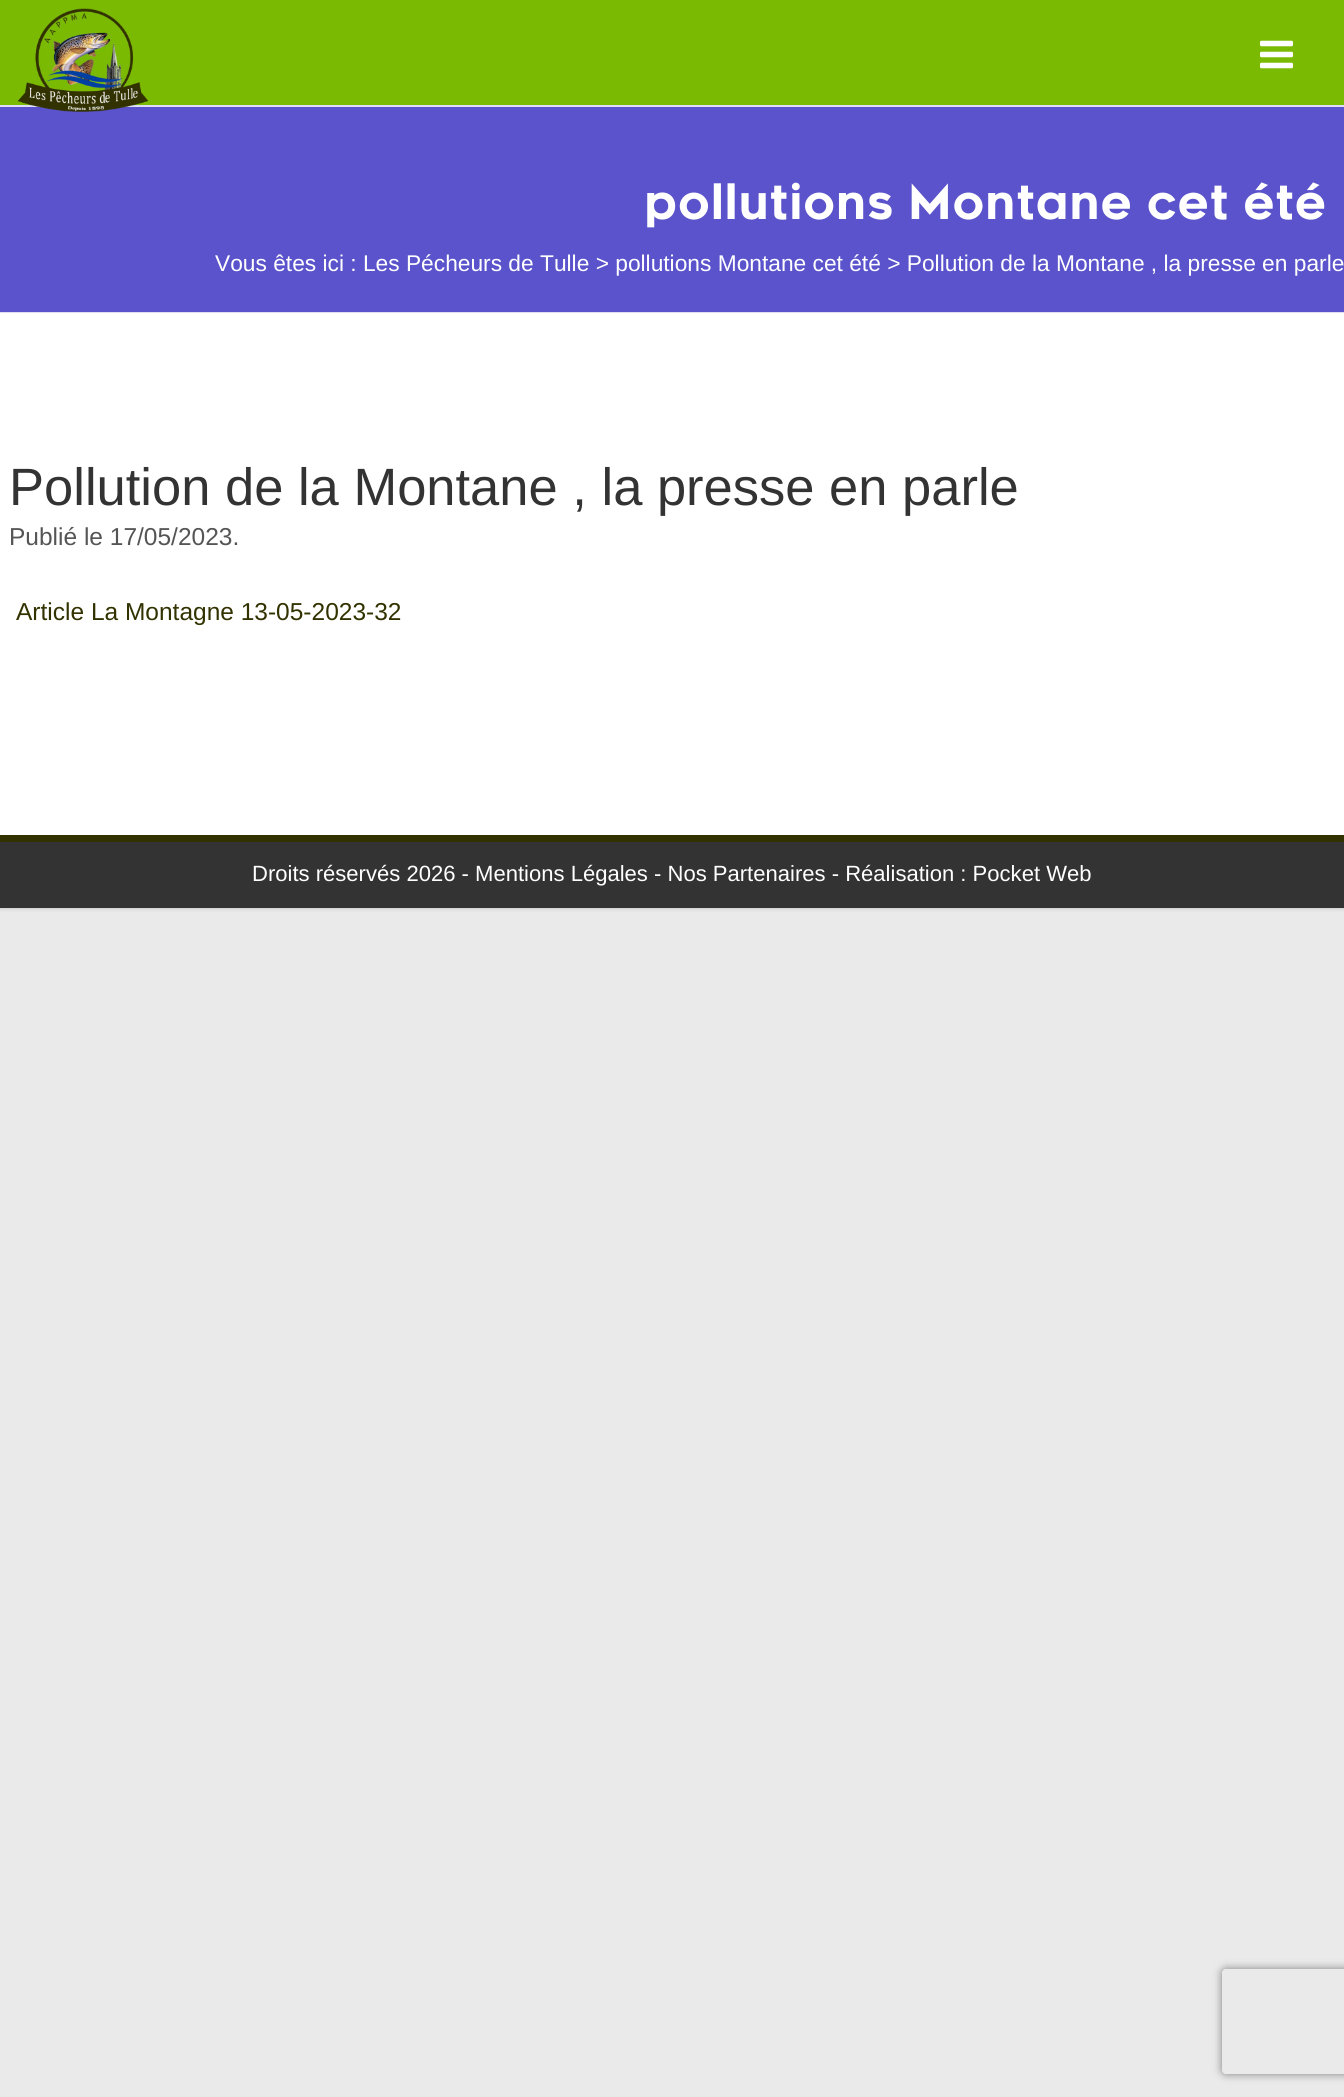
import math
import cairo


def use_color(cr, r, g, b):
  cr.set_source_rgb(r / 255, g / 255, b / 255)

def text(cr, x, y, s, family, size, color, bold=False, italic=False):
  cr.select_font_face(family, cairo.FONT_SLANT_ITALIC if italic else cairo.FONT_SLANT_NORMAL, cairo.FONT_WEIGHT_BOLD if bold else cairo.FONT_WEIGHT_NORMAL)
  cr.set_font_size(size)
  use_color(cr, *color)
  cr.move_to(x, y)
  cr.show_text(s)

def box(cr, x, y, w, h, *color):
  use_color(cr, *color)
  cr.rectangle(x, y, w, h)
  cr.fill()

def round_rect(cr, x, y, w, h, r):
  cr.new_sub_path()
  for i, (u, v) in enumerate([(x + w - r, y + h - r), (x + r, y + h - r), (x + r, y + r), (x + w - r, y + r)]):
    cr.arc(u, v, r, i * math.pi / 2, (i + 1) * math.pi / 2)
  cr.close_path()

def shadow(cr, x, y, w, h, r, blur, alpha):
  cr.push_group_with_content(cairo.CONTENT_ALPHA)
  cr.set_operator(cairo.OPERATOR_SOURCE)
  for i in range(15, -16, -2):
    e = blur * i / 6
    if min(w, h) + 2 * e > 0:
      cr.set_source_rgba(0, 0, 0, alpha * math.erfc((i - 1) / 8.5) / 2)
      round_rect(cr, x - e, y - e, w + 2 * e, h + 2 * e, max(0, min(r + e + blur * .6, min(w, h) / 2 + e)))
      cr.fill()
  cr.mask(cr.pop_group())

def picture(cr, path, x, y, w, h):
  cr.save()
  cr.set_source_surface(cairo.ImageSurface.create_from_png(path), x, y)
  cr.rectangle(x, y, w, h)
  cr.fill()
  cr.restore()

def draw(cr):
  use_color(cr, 234, 234, 234)
  cr.paint()
  use_color(cr, 0, 0, 0)
  shadow(cr, 0, 0, 1344, 908, 0, 2.5, 0.2)
  box(cr, 0, 313, 1344, 522, 255, 255, 255)
  box(cr, 0, 0, 1344, 105, 122, 186, 2)
  box(cr, 0, 107, 1344, 205, 90, 83, 203)
  box(cr, 0, 105, 1344, 2, 222, 221, 245)
  picture(cr, "img_01.png", 17, 8, 131, 104)
  picture(cr, "img_02.png", 1260, 40, 33, 29)
  box(cr, 0, 312, 1344, 1, 222, 221, 245)
  box(cr, 0, 842, 1344, 66, 51, 51, 51)
  box(cr, 0, 835, 1344, 7, 50, 50, 0)
  cr.save()
  cr.set_fill_rule(cairo.FILL_RULE_EVEN_ODD)
  cr.new_path()
  cr.move_to(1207, 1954)
  cr.line_to(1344, 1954)
  cr.line_to(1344, 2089)
  cr.line_to(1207, 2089)
  cr.close_path()
  cr.move_to(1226, 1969)
  cr.line_to(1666, 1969)
  cr.curve_to(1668, 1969, 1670, 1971, 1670, 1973)
  cr.line_to(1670, 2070)
  cr.curve_to(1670, 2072, 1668, 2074, 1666, 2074)
  cr.line_to(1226, 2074)
  cr.curve_to(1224, 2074, 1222, 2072, 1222, 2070)
  cr.line_to(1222, 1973)
  cr.curve_to(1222, 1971, 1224, 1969, 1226, 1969)
  cr.close_path()
  cr.clip()
  use_color(cr, 128, 128, 128)
  shadow(cr, 1222, 1969, 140, 105, 4, 4.5, 1)
  cr.restore()
  text(cr, 644, 219, "pollutions Montane cet été", "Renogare", 47.25, (255, 255, 255))
  text(cr, 215, 271, "Vous êtes ici : Les Pécheurs de Tulle > pollutions Montane cet été > Pollution de la Montane , la presse en parle", "Liberation Sans", 22.75, (255, 255, 255))
  text(cr, 9, 505, "Pollution de la Montane , la presse en parle", "Liberation Sans", 52.5, (51, 51, 51))
  text(cr, 9, 545, "Publié le 17/05/2023.", "Liberation Sans", 24.5, (85, 85, 85))
  text(cr, 16, 620, "Article La Montagne 13-05-2023-32", "Liberation Sans", 24.5, (50, 50, 0))
  text(cr, 252, 881, "Droits réservés 2026 - Mentions Légales - Nos Partenaires - Réalisation : Pocket Web", "Liberation Sans", 22.05, (255, 255, 255))


surface = cairo.ImageSurface(cairo.FORMAT_RGB24, 1344, 2097)
cr = cairo.Context(surface)
options = cairo.FontOptions()
options.set_hint_metrics(cairo.HINT_METRICS_OFF)
options.set_hint_style(cairo.HINT_STYLE_NONE)
cr.set_font_options(options)
cr.set_miter_limit(4)
draw(cr)
surface.write_to_png("out.png")
